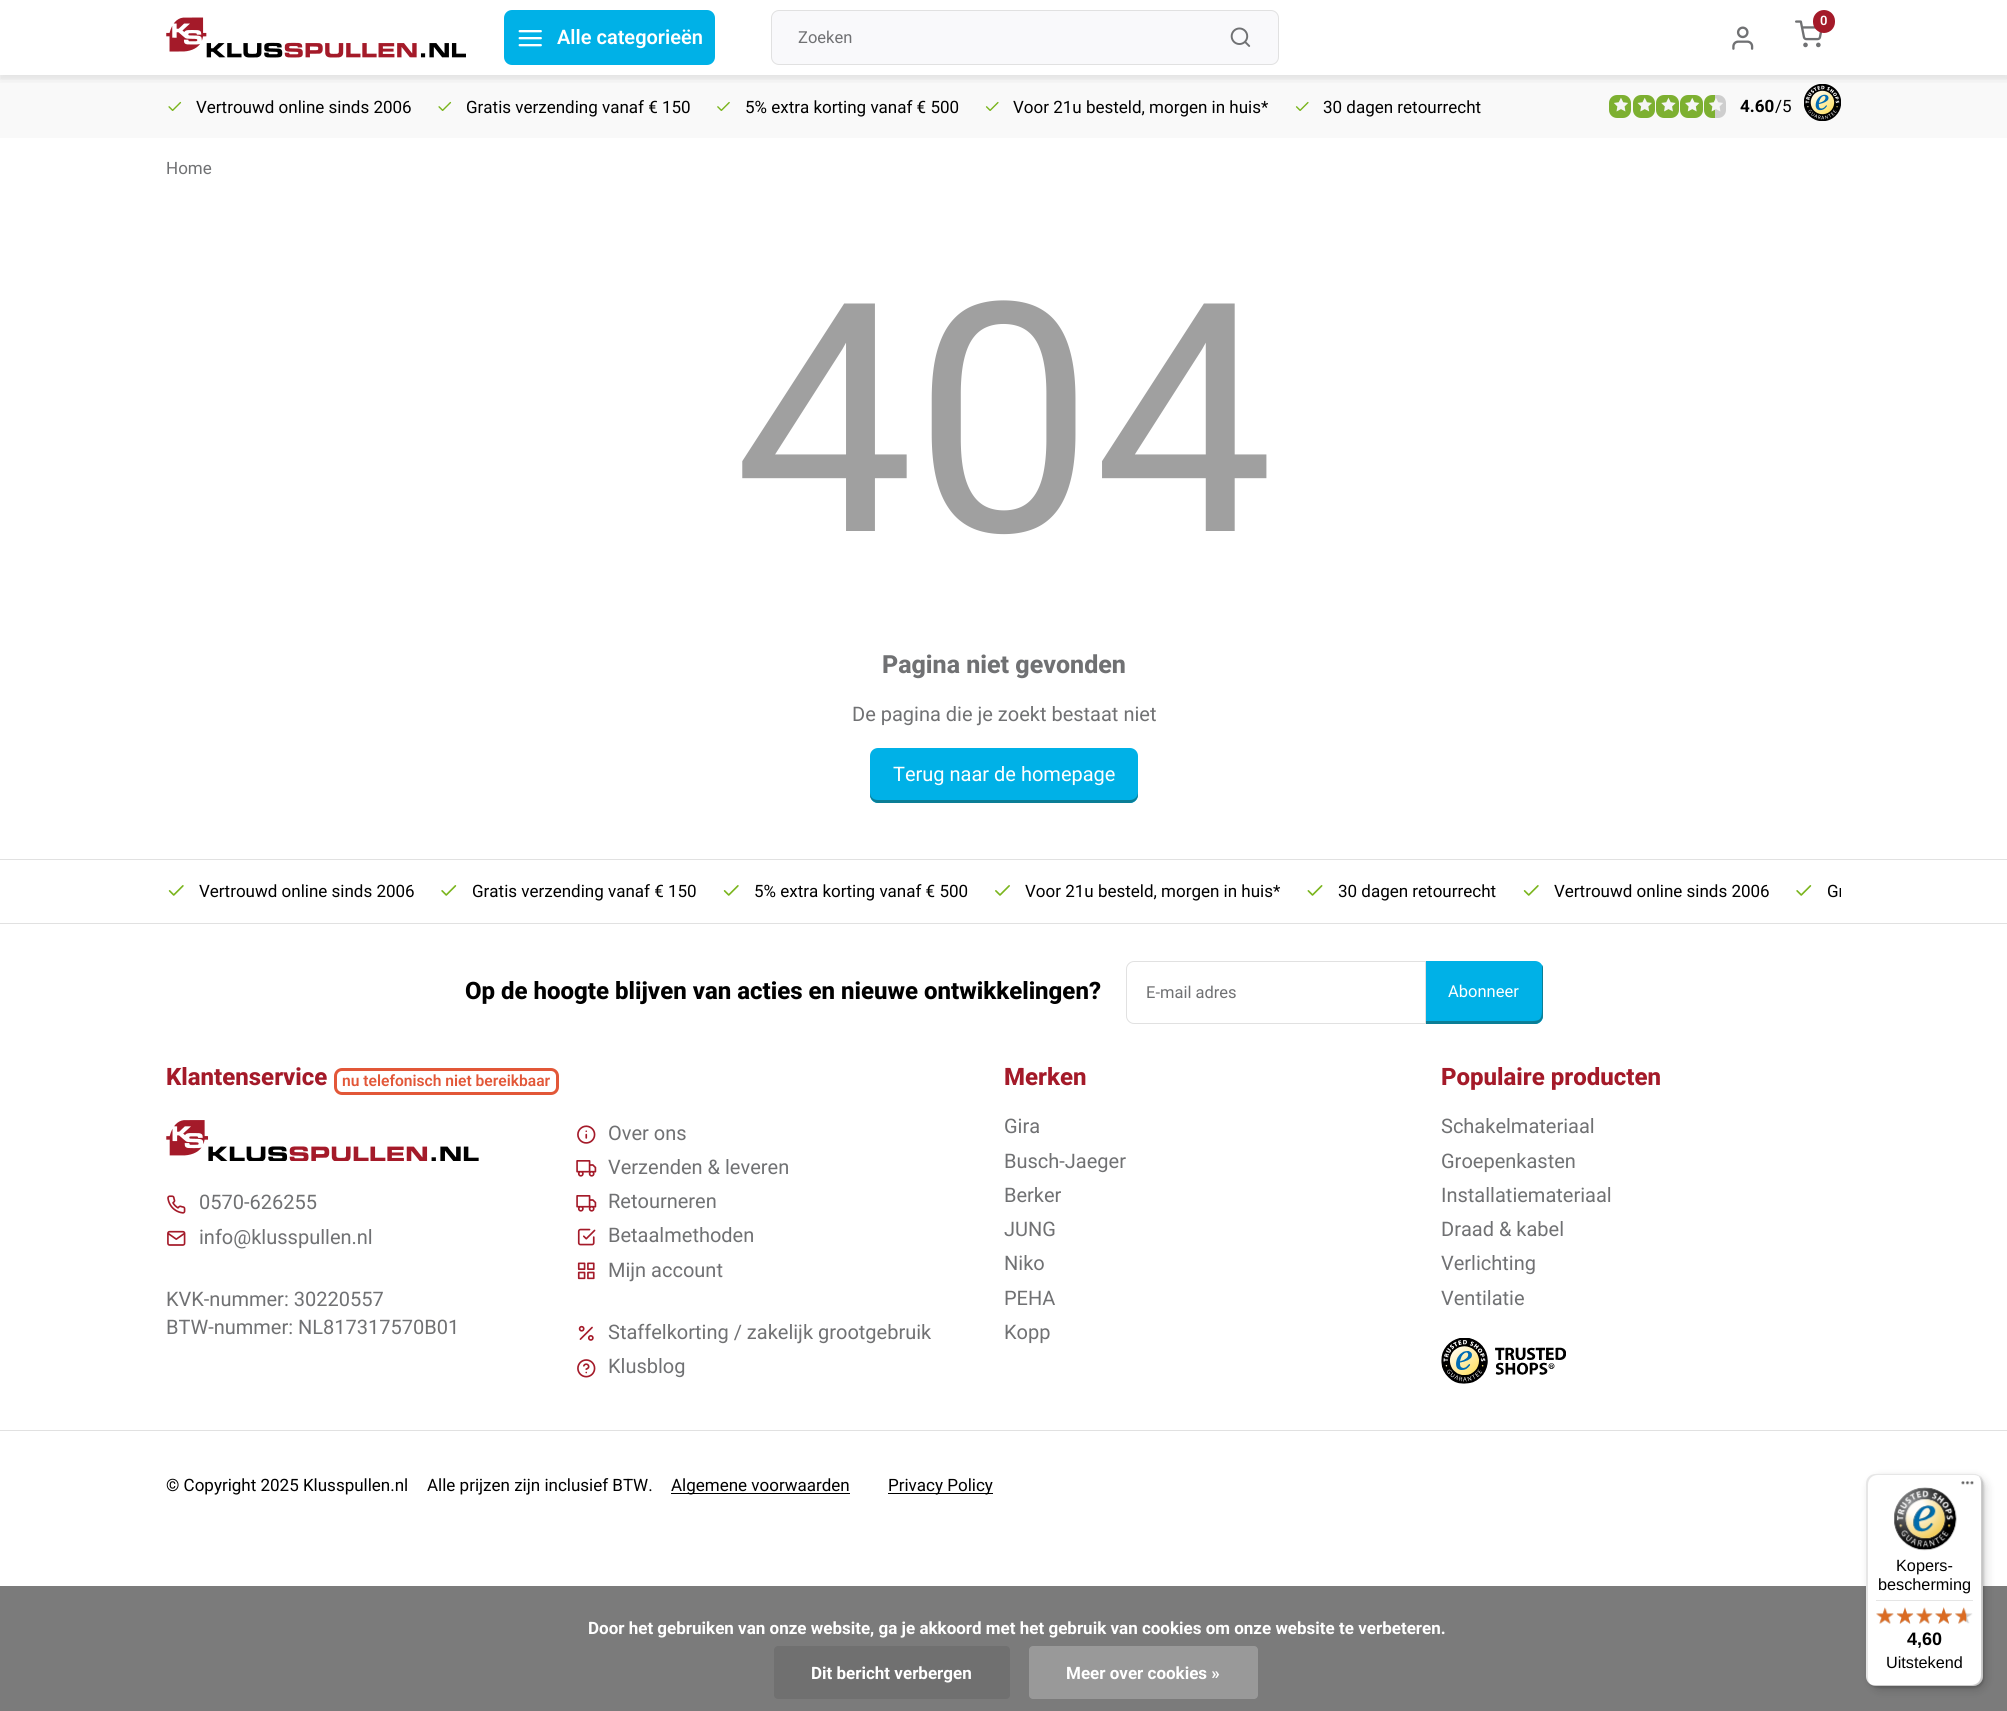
import math
import cairo


def use_color(cr, r, g, b):
  cr.set_source_rgb(r / 255, g / 255, b / 255)

def text(cr, x, y, s, family, size, color, bold=False, italic=False):
  cr.select_font_face(family, cairo.FONT_SLANT_ITALIC if italic else cairo.FONT_SLANT_NORMAL, cairo.FONT_WEIGHT_BOLD if bold else cairo.FONT_WEIGHT_NORMAL)
  cr.set_font_size(size)
  use_color(cr, *color)
  cr.move_to(x, y)
  cr.show_text(s)

def box(cr, x, y, w, h, *color):
  use_color(cr, *color)
  cr.rectangle(x, y, w, h)
  cr.fill()

def round_rect(cr, x, y, w, h, r):
  cr.new_sub_path()
  for i, (u, v) in enumerate([(x + w - r, y + h - r), (x + r, y + h - r), (x + r, y + r), (x + w - r, y + r)]):
    cr.arc(u, v, r, i * math.pi / 2, (i + 1) * math.pi / 2)
  cr.close_path()

def shadow(cr, x, y, w, h, r, blur, alpha):
  cr.push_group_with_content(cairo.CONTENT_ALPHA)
  cr.set_operator(cairo.OPERATOR_SOURCE)
  for i in range(15, -16, -2):
    e = blur * i / 6
    if min(w, h) + 2 * e > 0:
      cr.set_source_rgba(0, 0, 0, alpha * math.erfc((i - 1) / 8.5) / 2)
      round_rect(cr, x - e, y - e, w + 2 * e, h + 2 * e, max(0, min(r + e + blur * .6, min(w, h) / 2 + e)))
      cr.fill()
  cr.mask(cr.pop_group())

def picture(cr, path, x, y, w, h):
  cr.save()
  cr.set_source_surface(cairo.ImageSurface.create_from_png(path), x, y)
  cr.rectangle(x, y, w, h)
  cr.fill()
  cr.restore()

def draw(cr):
  use_color(cr, 255, 255, 255)
  cr.paint()
  box(cr, 0, 75, 2007, 63, 249, 249, 249)
  use_color(cr, 125, 176, 49)
  round_rect(cr, 1609, 95, 22, 23, 8)
  cr.fill()
  picture(cr, "img_09.png", 1614, 97, 14, 15)
  round_rect(cr, 1633, 95, 22, 23, 8)
  cr.fill()
  picture(cr, "img_10.png", 1637, 97, 15, 15)
  round_rect(cr, 1656, 95, 23, 23, 8)
  cr.fill()
  picture(cr, "img_11.png", 1661, 97, 15, 15)
  round_rect(cr, 1680, 95, 23, 23, 8)
  cr.fill()
  picture(cr, "img_12.png", 1685, 97, 15, 15)
  cr.new_path()
  cr.move_to(1712, 95)
  cr.line_to(1715, 95)
  cr.line_to(1715, 118)
  cr.line_to(1712, 118)
  cr.curve_to(1707.5, 118, 1704, 114.5, 1704, 110)
  cr.line_to(1704, 103)
  cr.curve_to(1704, 98.5, 1707.5, 95, 1712, 95)
  cr.close_path()
  cr.fill()
  use_color(cr, 206, 206, 206)
  cr.new_path()
  cr.move_to(1715, 95)
  cr.line_to(1718, 95)
  cr.curve_to(1722.5, 95, 1726, 98.5, 1726, 103)
  cr.line_to(1726, 110)
  cr.curve_to(1726, 114.5, 1722.5, 118, 1718, 118)
  cr.line_to(1715, 118)
  cr.close_path()
  cr.fill()
  picture(cr, "img_13.png", 1709, 98, 14, 14)
  picture(cr, "img_14.png", 1804, 84, 37, 37)
  cr.save()
  cr.rectangle(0, 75, 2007, 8)
  cr.clip()
  use_color(cr, 0, 0, 0)
  shadow(cr, 0, 6, 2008, 75, 0, 6, 0.05)
  cr.restore()
  cr.save()
  cr.rectangle(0, 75, 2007, 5)
  cr.clip()
  use_color(cr, 0, 0, 0)
  shadow(cr, 0, 4, 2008, 75, 0, 2.5, 0.05)
  cr.restore()
  picture(cr, "img_01.png", 1795, 20, 28, 28)
  use_color(cr, 164, 26, 41)
  round_rect(cr, 1813, 10, 22, 23, 11)
  cr.fill()
  picture(cr, "img_02.png", 1732, 26, 22, 24)
  picture(cr, "img_03.png", 166, 17, 300, 41)
  use_color(cr, 0, 177, 231)
  round_rect(cr, 504, 10, 211, 55, 8)
  cr.fill()
  picture(cr, "img_04.png", 518, 30, 24, 17)
  use_color(cr, 249, 249, 251)
  round_rect(cr, 771.5, 10.5, 507, 54, 7.5)
  cr.fill_preserve()
  use_color(cr, 225, 225, 225)
  cr.set_line_width(1)
  cr.stroke()
  picture(cr, "img_05.png", 1230, 27, 21, 20)
  picture(cr, "img_06.png", 168, 101, 14, 10)
  picture(cr, "img_06.png", 438, 101, 14, 10)
  picture(cr, "img_07.png", 717, 101, 13, 10)
  picture(cr, "img_08.png", 985, 101, 14, 10)
  picture(cr, "img_08.png", 1295, 101, 14, 10)
  use_color(cr, 0, 177, 231)
  round_rect(cr, 870, 748, 268, 55, 8)
  cr.fill()
  use_color(cr, 11, 126, 150)
  cr.new_path()
  cr.move_to(870, 792)
  cr.line_to(870, 795)
  cr.curve_to(870, 799, 874, 803, 878, 803)
  cr.line_to(1130, 803)
  cr.curve_to(1134, 803, 1138, 799, 1138, 795)
  cr.line_to(1138, 792)
  cr.curve_to(1138, 797, 1134, 800, 1130, 800)
  cr.line_to(878, 800)
  cr.curve_to(873, 800, 870, 797, 870, 792)
  cr.close_path()
  cr.fill()
  box(cr, 0, 859, 2007, 1, 225, 225, 225)
  box(cr, 0, 923, 2007, 1, 225, 225, 225)
  picture(cr, "img_15.png", 168, 885, 16, 11)
  picture(cr, "img_16.png", 441, 885, 16, 11)
  picture(cr, "img_15.png", 723, 885, 16, 11)
  picture(cr, "img_17.png", 995, 885, 15, 11)
  picture(cr, "img_18.png", 1307, 885, 16, 11)
  picture(cr, "img_15.png", 1523, 885, 16, 11)
  picture(cr, "img_16.png", 1796, 885, 16, 11)
  cr.new_path()
  cr.move_to(1134, 961.5)
  cr.line_to(1425.5, 961.5)
  cr.line_to(1425.5, 1023.5)
  cr.line_to(1134, 1023.5)
  cr.curve_to(1130, 1023.5, 1126.5, 1020, 1126.5, 1016)
  cr.line_to(1126.5, 969)
  cr.curve_to(1126.5, 965, 1130, 961.5, 1134, 961.5)
  cr.close_path()
  cr.stroke()
  use_color(cr, 0, 177, 231)
  cr.new_path()
  cr.move_to(1426, 961)
  cr.line_to(1535, 961)
  cr.curve_to(1539.5, 961, 1543, 964.5, 1543, 969)
  cr.line_to(1543, 1016)
  cr.curve_to(1543, 1020.5, 1539.5, 1024, 1535, 1024)
  cr.line_to(1426, 1024)
  cr.close_path()
  cr.fill()
  use_color(cr, 11, 126, 150)
  cr.new_path()
  cr.move_to(1426, 1021)
  cr.line_to(1426, 1024)
  cr.line_to(1535, 1024)
  cr.curve_to(1539, 1024, 1543, 1020, 1543, 1016)
  cr.line_to(1543, 969)
  cr.curve_to(1543, 968, 1543, 966, 1542, 965)
  cr.line_to(1542, 998)
  cr.curve_to(1542, 1024, 1544, 1021, 1517, 1021)
  cr.close_path()
  cr.fill()
  round_rect(cr, 335.5, 1069.5, 222, 24, 6.5)
  use_color(cr, 226, 87, 56)
  cr.set_line_width(3)
  cr.stroke()
  picture(cr, "img_19.png", 166, 1120, 313, 41)
  picture(cr, "img_20.png", 167, 1195, 19, 19)
  picture(cr, "img_21.png", 167, 1230, 19, 16)
  picture(cr, "img_22.png", 577, 1125, 19, 19)
  picture(cr, "img_23.png", 576, 1160, 21, 17)
  picture(cr, "img_23.png", 576, 1195, 21, 17)
  picture(cr, "img_24.png", 577, 1228, 19, 18)
  picture(cr, "img_25.png", 577, 1262, 18, 18)
  picture(cr, "img_26.png", 578, 1325, 16, 16)
  picture(cr, "img_27.png", 577, 1359, 19, 19)
  picture(cr, "img_28.png", 1441, 1338, 125, 46)
  box(cr, 0, 1430, 2007, 1, 225, 225, 225)
  box(cr, 671, 1493, 179, 1, 0, 0, 0)
  box(cr, 888, 1493, 105, 1, 0, 0, 0)
  box(cr, 0, 1586, 2007, 125, 123, 123, 123)
  use_color(cr, 112, 112, 112)
  round_rect(cr, 774, 1646, 236, 53, 4)
  cr.fill()
  use_color(cr, 153, 153, 153)
  round_rect(cr, 1029, 1646, 229, 53, 4)
  cr.fill()
  use_color(cr, 0, 0, 0)
  shadow(cr, 1870, 1478, 116, 212, 10, 5, 0.15)
  shadow(cr, 1868, 1475, 116, 213, 10, 1, 0.15)
  use_color(cr, 255, 255, 255)
  round_rect(cr, 1866, 1474, 117, 212, 10)
  cr.fill()
  cr.set_source_rgba(0, 0, 0, 0.1)
  cr.new_path()
  cr.move_to(1878, 1475)
  cr.line_to(1974, 1475)
  cr.curve_to(1976, 1475, 1979, 1476, 1981, 1478)
  cr.curve_to(1979, 1475, 1976, 1474, 1973, 1474)
  cr.line_to(1876, 1474)
  cr.curve_to(1870, 1474, 1866, 1478, 1866, 1484)
  cr.line_to(1866, 1676)
  cr.curve_to(1866, 1679, 1868, 1682, 1870, 1684)
  cr.curve_to(1869, 1682, 1868, 1680, 1868, 1678)
  cr.line_to(1868, 1485)
  cr.curve_to(1868, 1479, 1872, 1475, 1878, 1475)
  cr.close_path()
  cr.fill()
  cr.set_source_rgba(0, 0, 0, 0.2)
  cr.new_path()
  cr.move_to(1870, 1684)
  cr.curve_to(1871, 1685, 1874, 1686, 1876, 1686)
  cr.line_to(1973, 1686)
  cr.curve_to(1979, 1686, 1983, 1682, 1983, 1676)
  cr.line_to(1983, 1484)
  cr.curve_to(1983, 1481, 1981, 1478, 1979, 1476)
  cr.curve_to(1980, 1478, 1981, 1480, 1981, 1482)
  cr.line_to(1981, 1675)
  cr.curve_to(1981, 1681, 1977, 1685, 1971, 1685)
  cr.line_to(1875, 1685)
  cr.curve_to(1873, 1685, 1871, 1685, 1870, 1684)
  cr.close_path()
  cr.fill()
  cr.set_source_rgba(0.196, 0.196, 0.196, 0.2)
  cr.new_path()
  cr.move_to(1972, 1686)
  cr.line_to(1973, 1686)
  cr.curve_to(1979, 1686, 1983, 1682, 1983, 1676)
  cr.line_to(1983, 1484)
  cr.curve_to(1983, 1481, 1982, 1478, 1980, 1476)
  cr.curve_to(1981, 1478, 1982, 1480, 1982, 1483)
  cr.line_to(1982, 1676)
  cr.curve_to(1982, 1681, 1977, 1686, 1972, 1686)
  cr.close_path()
  cr.fill()
  cr.set_source_rgba(1, 1, 1, 0.3)
  cr.new_path()
  cr.move_to(1972, 1686)
  cr.line_to(1973, 1686)
  cr.curve_to(1979, 1686, 1983, 1682, 1983, 1676)
  cr.line_to(1983, 1484)
  cr.curve_to(1983, 1480, 1981, 1477, 1978, 1475)
  cr.curve_to(1980, 1477, 1982, 1480, 1982, 1483)
  cr.line_to(1982, 1676)
  cr.curve_to(1982, 1681, 1977, 1686, 1972, 1686)
  cr.close_path()
  cr.fill()
  picture(cr, "img_29.png", 1961, 1481, 13, 4)
  picture(cr, "img_30.png", 1894, 1487, 63, 64)
  box(cr, 1876, 1600, 97, 1, 229, 229, 229)
  picture(cr, "img_31.png", 1876, 1608, 18, 16)
  picture(cr, "img_32.png", 1897, 1607, 16, 17)
  picture(cr, "img_33.png", 1916, 1608, 17, 16)
  picture(cr, "img_34.png", 1935, 1607, 17, 17)
  picture(cr, "img_35.png", 1955, 1608, 18, 16)
  picture(cr, "img_36.png", 1876, 1607, 18, 17)
  picture(cr, "img_37.png", 1896, 1607, 18, 17)
  picture(cr, "img_38.png", 1916, 1607, 17, 17)
  picture(cr, "img_39.png", 1935, 1607, 17, 17)
  picture(cr, "img_40.png", 1955, 1607, 12, 17)
  text(cr, 1820, 25, "0", "Roboto SemiBold", 13, (255, 255, 255))
  text(cr, 557, 44, "Alle categorieën", "Roboto SemiBold", 20, (255, 255, 255))
  text(cr, 798, 43, "Zoeken", "Roboto", 16.5, (112, 113, 115))
  text(cr, 196, 113, "Vertrouwd online sinds 2006", "Roboto", 17, (0, 0, 0))
  text(cr, 466, 113, "Gratis verzending vanaf € 150", "Roboto", 17, (0, 0, 0))
  text(cr, 745, 113, "5% extra korting vanaf € 500", "Roboto", 17, (0, 0, 0))
  text(cr, 1013, 113, "Voor 21u besteld, morgen in huis*", "Roboto", 17, (0, 0, 0))
  text(cr, 1323, 113, "30 dagen retourrecht", "Roboto", 17, (0, 0, 0))
  text(cr, 1740, 112, "4.60", "Roboto", 17, (0, 0, 0), bold=True)
  text(cr, 1775, 112, "/5", "Roboto", 17, (0, 0, 0))
  text(cr, 166, 174, "Home", "Roboto", 17, (112, 113, 115))
  text(cr, 734, 531, "404", "Roboto", 320, (160, 160, 160))
  text(cr, 882, 673, "Pagina niet gevonden", "Roboto ExtraBold", 25, (112, 113, 115))
  text(cr, 852, 721, "De pagina die je zoekt bestaat niet", "Roboto", 20, (112, 113, 115))
  text(cr, 893, 781, "Terug naar de homepage", "Roboto", 20, (255, 255, 255))
  text(cr, 199, 897, "Vertrouwd online sinds 2006", "Roboto", 17, (0, 0, 0))
  text(cr, 472, 897, "Gratis verzending vanaf € 150", "Roboto", 17, (0, 0, 0))
  text(cr, 754, 897, "5% extra korting vanaf € 500", "Roboto", 17, (0, 0, 0))
  text(cr, 1025, 897, "Voor 21u besteld, morgen in huis*", "Roboto", 17, (0, 0, 0))
  text(cr, 1338, 897, "30 dagen retourrecht", "Roboto", 17, (0, 0, 0))
  text(cr, 1554, 897, "Vertrouwd online sinds 2006", "Roboto", 17, (0, 0, 0))
  cr.save()
  cr.rectangle(166, 860, 1675, 63)
  cr.clip()
  text(cr, 1827, 897, "Gr", "Roboto", 17, (0, 0, 0))
  cr.restore()
  text(cr, 465, 999, "Op de hoogte blijven van acties en nieuwe ontwikkelingen?", "Roboto ExtraBold", 24, (0, 0, 0))
  text(cr, 1146, 998, "E-mail adres", "Roboto", 16.5, (112, 113, 115))
  text(cr, 1448, 997, "Abonneer", "Roboto", 16.5, (255, 255, 255))
  text(cr, 166, 1085, "Klantenservice", "Roboto ExtraBold", 24, (164, 26, 41))
  text(cr, 342, 1086, "nu telefonisch niet bereikbaar", "Roboto SemiBold", 15.6, (226, 87, 56))
  text(cr, 199, 1209, "0570-626255", "Roboto", 20, (112, 113, 115))
  text(cr, 199, 1244, "info@klusspullen.nl", "Roboto", 20, (112, 113, 115))
  text(cr, 166, 1306, "KVK-nummer: 30220557", "Roboto", 20, (112, 113, 115))
  text(cr, 166, 1334, "BTW-nummer: NL817317570B01", "Roboto", 20, (112, 113, 115))
  text(cr, 608, 1140, "Over ons", "Roboto", 20, (112, 113, 115))
  text(cr, 608, 1174, "Verzenden & leveren", "Roboto", 20, (112, 113, 115))
  text(cr, 608, 1208, "Retourneren", "Roboto", 20, (112, 113, 115))
  text(cr, 608, 1242, "Betaalmethoden", "Roboto", 20, (112, 113, 115))
  text(cr, 608, 1277, "Mijn account", "Roboto", 20, (112, 113, 115))
  text(cr, 608, 1339, "Staffelkorting / zakelijk grootgebruik", "Roboto", 20, (112, 113, 115))
  text(cr, 608, 1373, "Klusblog", "Roboto", 20, (112, 113, 115))
  text(cr, 1004, 1085, "Merken", "Roboto ExtraBold", 24, (164, 26, 41))
  text(cr, 1004, 1133, "Gira", "Roboto", 20, (112, 113, 115))
  text(cr, 1004, 1168, "Busch-Jaeger", "Roboto", 20, (112, 113, 115))
  text(cr, 1004, 1202, "Berker", "Roboto", 20, (112, 113, 115))
  text(cr, 1004, 1236, "JUNG", "Roboto", 20, (112, 113, 115))
  text(cr, 1004, 1270, "Niko", "Roboto", 20, (112, 113, 115))
  text(cr, 1004, 1305, "PEHA", "Roboto", 20, (112, 113, 115))
  text(cr, 1004, 1339, "Kopp", "Roboto", 20, (112, 113, 115))
  text(cr, 1441, 1085, "Populaire producten", "Roboto ExtraBold", 24, (164, 26, 41))
  text(cr, 1441, 1133, "Schakelmateriaal", "Roboto", 20, (112, 113, 115))
  text(cr, 1441, 1168, "Groepenkasten", "Roboto", 20, (112, 113, 115))
  text(cr, 1441, 1202, "Installatiemateriaal", "Roboto", 20, (112, 113, 115))
  text(cr, 1441, 1236, "Draad & kabel", "Roboto", 20, (112, 113, 115))
  text(cr, 1441, 1270, "Verlichting", "Roboto", 20, (112, 113, 115))
  text(cr, 1441, 1305, "Ventilatie", "Roboto", 20, (112, 113, 115))
  text(cr, 166, 1491, "© Copyright 2025 Klusspullen.nl", "Roboto", 17, (0, 0, 0))
  text(cr, 427, 1491, "Alle prijzen zijn inclusief BTW.", "Roboto", 17, (0, 0, 0))
  text(cr, 671, 1491, "Algemene voorwaarden", "Roboto", 17, (0, 0, 0))
  text(cr, 888, 1491, "Privacy Policy", "Roboto", 17, (0, 0, 0))
  text(cr, 588, 1634, "Door het gebruiken van onze website, ga je akkoord met het gebruik van cookies om onze website te verbeteren.", "Roboto", 17, (255, 255, 255), bold=True)
  text(cr, 811, 1679, "Dit bericht verbergen", "Roboto", 17, (255, 255, 255), bold=True)
  text(cr, 1066, 1679, "Meer over cookies »", "Roboto", 17, (255, 255, 255), bold=True)
  text(cr, 1896, 1571, "Kopers-", "Liberation Sans", 16.25, (0, 0, 0))
  text(cr, 1878, 1590, "bescherming", "Liberation Sans", 16.25, (0, 0, 0))
  text(cr, 1907, 1645, "4,60", "Liberation Sans", 18, (0, 0, 0), bold=True)
  text(cr, 1886, 1668, "Uitstekend", "Liberation Sans", 16.25, (0, 0, 0))


surface = cairo.ImageSurface(cairo.FORMAT_RGB24, 2007, 1711)
cr = cairo.Context(surface)
options = cairo.FontOptions()
options.set_hint_metrics(cairo.HINT_METRICS_OFF)
options.set_hint_style(cairo.HINT_STYLE_NONE)
cr.set_font_options(options)
cr.set_miter_limit(4)
draw(cr)
surface.write_to_png("out.png")
